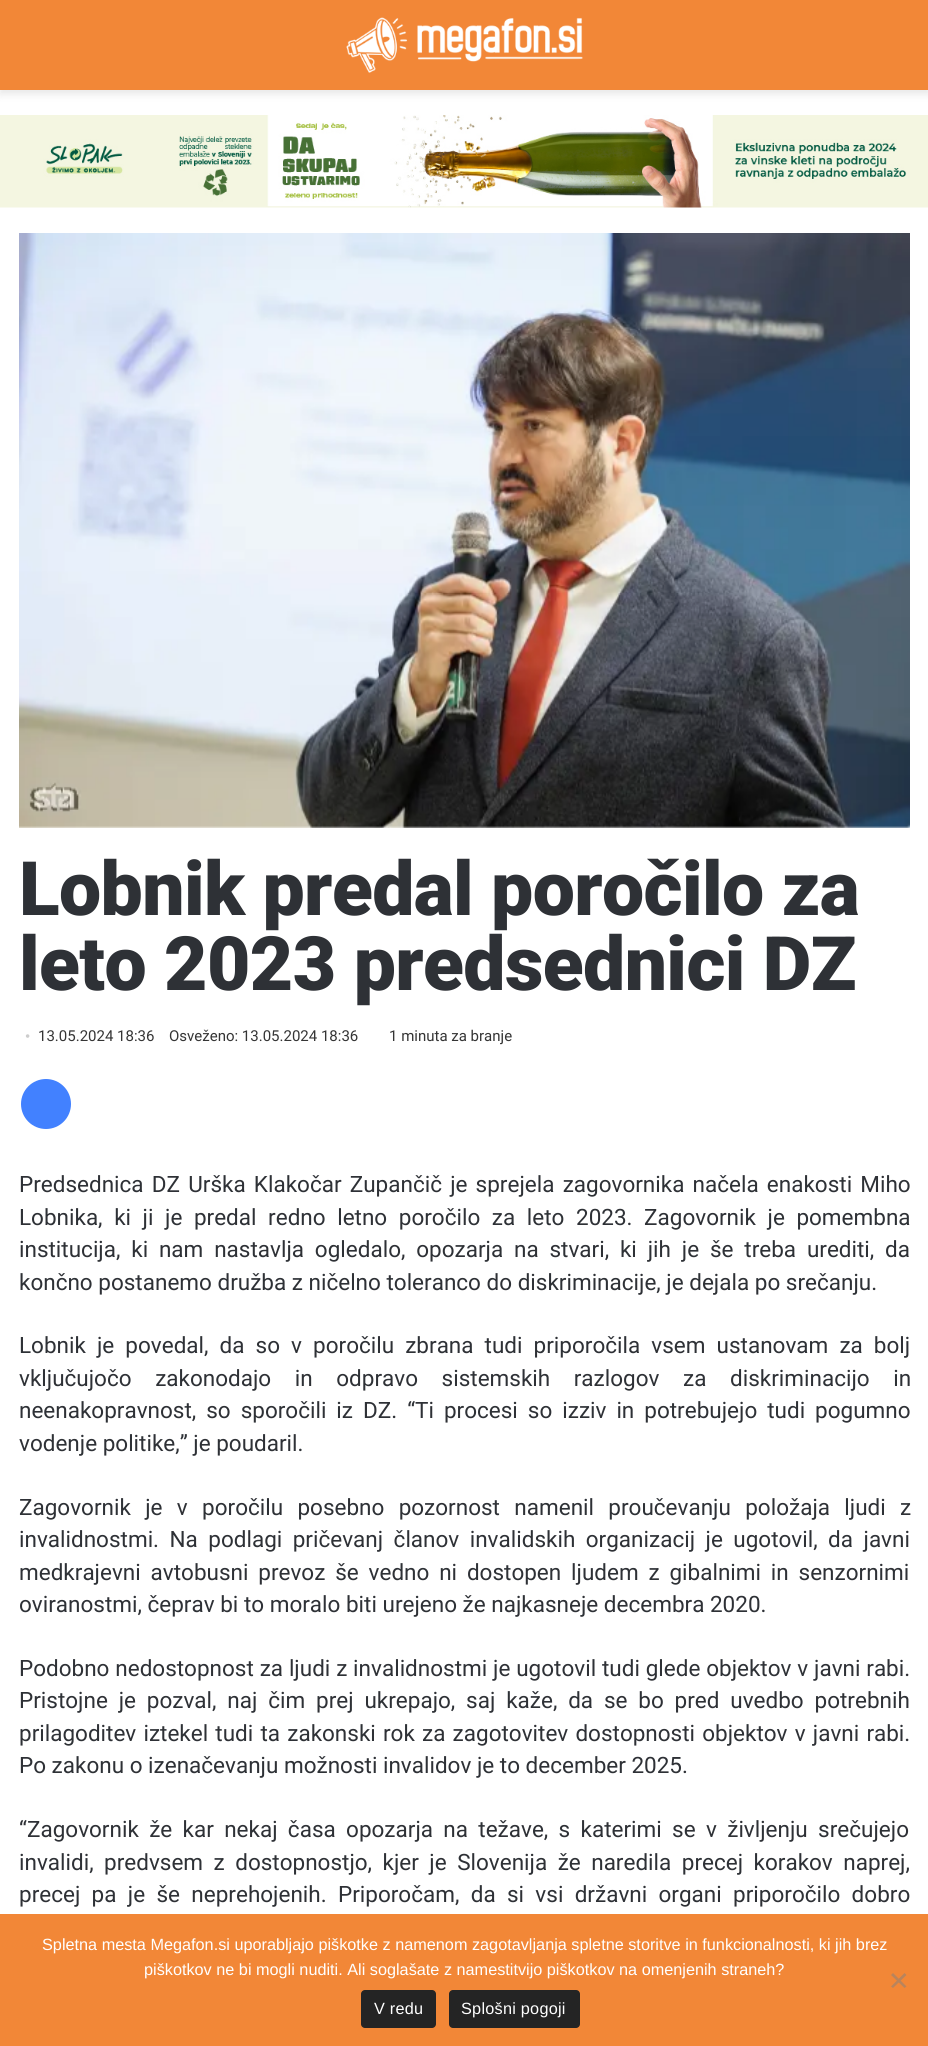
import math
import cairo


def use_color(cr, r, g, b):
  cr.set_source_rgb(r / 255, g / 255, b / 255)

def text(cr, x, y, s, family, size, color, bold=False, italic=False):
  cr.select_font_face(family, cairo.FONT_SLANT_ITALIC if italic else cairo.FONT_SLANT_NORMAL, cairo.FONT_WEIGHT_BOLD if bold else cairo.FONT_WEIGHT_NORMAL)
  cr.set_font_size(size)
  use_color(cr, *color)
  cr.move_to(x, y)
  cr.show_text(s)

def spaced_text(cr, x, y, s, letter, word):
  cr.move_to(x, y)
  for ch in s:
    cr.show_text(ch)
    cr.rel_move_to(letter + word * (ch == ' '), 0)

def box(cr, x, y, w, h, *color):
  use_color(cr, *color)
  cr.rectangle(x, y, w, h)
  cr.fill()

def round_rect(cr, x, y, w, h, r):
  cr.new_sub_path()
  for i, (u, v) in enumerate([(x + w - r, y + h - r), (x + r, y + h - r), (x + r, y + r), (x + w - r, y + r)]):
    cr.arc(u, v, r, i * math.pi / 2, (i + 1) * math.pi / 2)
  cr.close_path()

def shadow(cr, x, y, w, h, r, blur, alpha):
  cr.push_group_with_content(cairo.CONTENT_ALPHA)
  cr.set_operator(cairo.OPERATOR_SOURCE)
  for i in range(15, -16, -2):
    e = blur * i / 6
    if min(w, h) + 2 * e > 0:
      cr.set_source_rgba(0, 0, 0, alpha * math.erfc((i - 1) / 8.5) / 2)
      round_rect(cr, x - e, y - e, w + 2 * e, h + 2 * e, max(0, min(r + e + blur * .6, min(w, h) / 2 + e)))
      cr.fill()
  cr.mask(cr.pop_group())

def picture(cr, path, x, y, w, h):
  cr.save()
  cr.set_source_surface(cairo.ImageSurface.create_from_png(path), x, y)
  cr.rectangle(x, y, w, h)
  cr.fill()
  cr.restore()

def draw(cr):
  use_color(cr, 255, 255, 255)
  cr.paint()
  use_color(cr, 0, 0, 0)
  shadow(cr, 0, 4, 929, 90, 0, 4.5, 0.1)
  box(cr, 0, 0, 928, 90, 242, 135, 55)
  picture(cr, "img_01.png", 346, 17, 237, 56)
  picture(cr, "img_02.png", 0, 115, 928, 93)
  picture(cr, "img_03.png", 19, 233, 891, 595)
  use_color(cr, 66, 129, 255)
  cr.arc(46, 1104, 25, 0, 2 * math.pi)
  cr.fill()
  box(cr, 0, 1914, 928, 132, 242, 135, 55)
  use_color(cr, 185, 132, 92)
  cr.new_path()
  cr.move_to(904.5, 1973)
  cr.line_to(906.5, 1975)
  cr.line_to(893, 1988)
  cr.line_to(891, 1986.5)
  cr.close_path()
  cr.fill()
  cr.new_path()
  cr.move_to(891, 1975)
  cr.line_to(893, 1973)
  cr.line_to(906.5, 1986.5)
  cr.line_to(904.5, 1988)
  cr.close_path()
  cr.fill()
  use_color(cr, 36, 36, 36)
  round_rect(cr, 361, 1990, 75, 38, 4)
  cr.fill()
  round_rect(cr, 449, 1990, 131, 38, 4)
  cr.fill()
  cr.select_font_face("Roboto Black")
  cr.set_font_size(75)
  use_color(cr, 46, 49, 54)
  spaced_text(cr, 19, 915, "Lobnik predal poročilo za", -0.6, 0)
  spaced_text(cr, 19, 990, "leto 2023 predsednici DZ", -0.6, 0)
  text(cr, 25, 1041, "•", "Liberation Serif", 15, (205, 205, 205))
  text(cr, 38, 1041, "13.05.2024 18:36", "Roboto", 15, (53, 53, 53))
  text(cr, 169, 1041, "Osveženo: 13.05.2024 18:36", "Roboto", 15, (53, 53, 53))
  text(cr, 389, 1041, "1 minuta za branje", "Roboto", 15, (53, 53, 53))
  cr.set_font_size(22.5)
  use_color(cr, 46, 49, 54)
  spaced_text(cr, 19, 1192, "Predsednica DZ Urška Klakočar Zupančič je sprejela zagovornika načela enakosti Miho", 0, 2.6)
  spaced_text(cr, 19, 1225, "Lobnika, ki ji je predal redno letno poročilo za leto 2023. Zagovornik je pomembna", 0, 6)
  spaced_text(cr, 19, 1257, "institucija, ki nam nastavlja ogledalo, opozarja na stvari, ki jih je še treba urediti, da", 0, 5.25)
  text(cr, 19, 1290, "končno postanemo družba z ničelno toleranco do diskriminacije, je dejala po srečanju.", "Roboto", 22.5, (46, 49, 54))
  spaced_text(cr, 19, 1353, "Lobnik je povedal, da so v poročilu zbrana tudi priporočila vsem ustanovam za bolj", 0, 5.5)
  spaced_text(cr, 19, 1386, "vključujočo zakonodajo in odpravo sistemskih razlogov za diskriminacijo in", 0, 18)
  spaced_text(cr, 19, 1418, "neenakopravnost, so sporočili iz DZ. “Ti procesi so izziv in potrebujejo tudi pogumno", 0, 4.4)
  text(cr, 19, 1451, "vodenje politike,” je poudaril.", "Roboto", 22.5, (46, 49, 54))
  spaced_text(cr, 19, 1515, "Zagovornik je v poročilu posebno pozornost namenil proučevanju položaja ljudi z", 0, 8.75)
  spaced_text(cr, 19, 1547, "invalidnostmi. Na podlagi pričevanj članov invalidskih organizacij je ugotovil, da javni", 0, 4.9)
  spaced_text(cr, 19, 1580, "medkrajevni avtobusni prevoz še vedno ni dostopen ljudem z gibalnimi in senzornimi", 0, 4.25)
  text(cr, 19, 1612, "oviranostmi, čeprav bi to moralo biti urejeno že najkasneje decembra 2020.", "Roboto", 22.5, (46, 49, 54))
  spaced_text(cr, 19, 1676, "Podobno nedostopnost za ljudi z invalidnostmi je ugotovil tudi glede objektov v javni rabi.", 0, 0.25)
  spaced_text(cr, 19, 1708, "Pristojne je pozval, naj čim prej ukrepajo, saj kaže, da se bo pred uvedbo potrebnih", 0, 5.25)
  spaced_text(cr, 19, 1741, "prilagoditev iztekel tudi ta zakonski rok za zagotovitev dostopnosti objektov v javni rabi.", 0, 1.6)
  text(cr, 19, 1773, "Po zakonu o izenačevanju možnosti invalidov je to december 2025.", "Roboto", 22.5, (46, 49, 54))
  spaced_text(cr, 19, 1837, "“Zagovornik že kar nekaj časa opozarja na težave, s katerimi se v življenju srečujejo", 0, 4.75)
  spaced_text(cr, 19, 1870, "invalidi, predvsem z dostopnostjo, kjer je Slovenija že naredila precej korakov naprej,", 0, 4.9)
  spaced_text(cr, 19, 1902, "precej pa je še neprehojenih. Priporočam, da si vsi državni organi priporočilo dobro", 0, 5.75)
  text(cr, 42, 1950, "Spletna mesta Megafon.si uporabljajo piškotke z namenom zagotavljanja spletne storitve in funkcionalnosti, ki jih brez", "Liberation Sans", 16.25, (255, 255, 255))
  text(cr, 144, 1975, "piškotkov ne bi mogli nuditi. Ali soglašate z namestitvijo piškotkov na omenjenih straneh?", "Liberation Sans", 16.25, (255, 255, 255))
  spaced_text(cr, 374, 2014, "V redu", 0.25, 0)
  spaced_text(cr, 461, 2014, "Splošni pogoji", 0.25, 0)


surface = cairo.ImageSurface(cairo.FORMAT_RGB24, 928, 2046)
cr = cairo.Context(surface)
options = cairo.FontOptions()
options.set_hint_metrics(cairo.HINT_METRICS_OFF)
options.set_hint_style(cairo.HINT_STYLE_NONE)
cr.set_font_options(options)
cr.set_miter_limit(4)
draw(cr)
surface.write_to_png("out.png")
